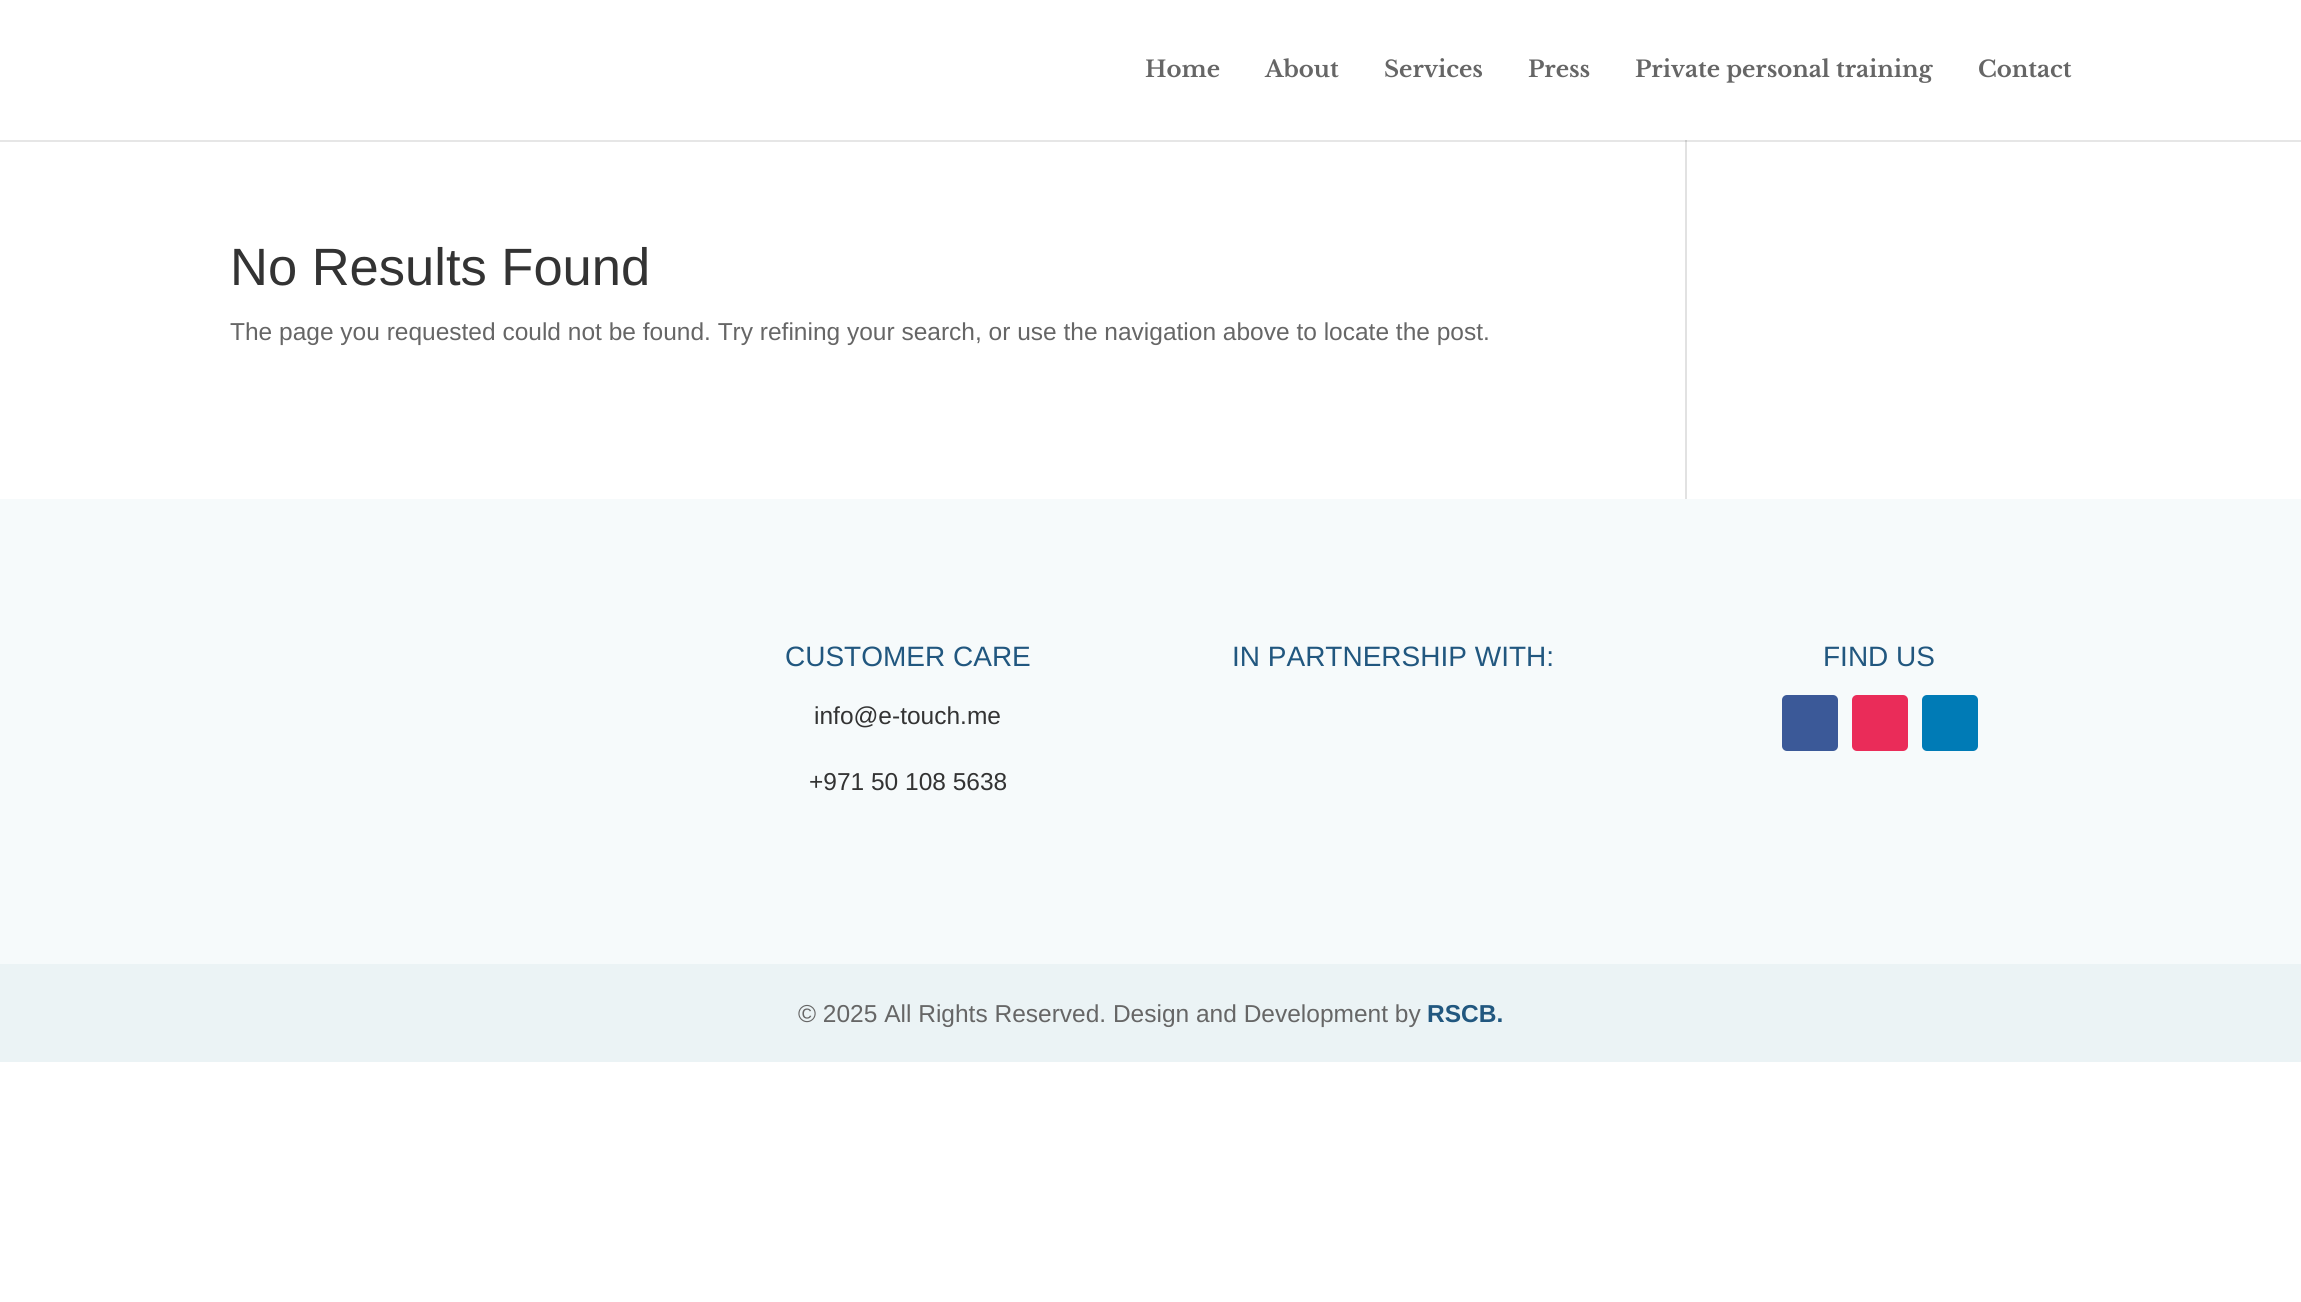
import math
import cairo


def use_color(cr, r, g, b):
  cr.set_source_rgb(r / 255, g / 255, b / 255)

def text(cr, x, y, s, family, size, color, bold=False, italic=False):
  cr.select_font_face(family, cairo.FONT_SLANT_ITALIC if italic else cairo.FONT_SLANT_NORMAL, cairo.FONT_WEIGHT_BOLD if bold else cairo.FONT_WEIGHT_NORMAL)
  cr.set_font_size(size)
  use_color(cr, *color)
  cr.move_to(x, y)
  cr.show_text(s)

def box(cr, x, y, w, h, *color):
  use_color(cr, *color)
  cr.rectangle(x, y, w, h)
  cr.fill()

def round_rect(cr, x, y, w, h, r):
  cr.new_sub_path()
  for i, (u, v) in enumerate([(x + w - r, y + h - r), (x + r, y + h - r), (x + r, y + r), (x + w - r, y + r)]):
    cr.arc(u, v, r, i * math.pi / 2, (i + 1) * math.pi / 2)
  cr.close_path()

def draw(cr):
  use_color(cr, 255, 255, 255)
  cr.paint()
  box(cr, 0, 140, 2301, 2, 230, 230, 230)
  box(cr, 1685, 140, 2, 359, 226, 226, 226)
  box(cr, 1685, 140, 2, 2, 203, 203, 203)
  box(cr, 0, 499, 2301, 465, 246, 250, 251)
  use_color(cr, 59, 89, 152)
  round_rect(cr, 1782, 695, 56, 56, 5)
  cr.fill()
  use_color(cr, 234, 44, 89)
  round_rect(cr, 1852, 695, 56, 56, 5)
  cr.fill()
  use_color(cr, 0, 123, 182)
  round_rect(cr, 1922, 695, 56, 56, 5)
  cr.fill()
  box(cr, 0, 964, 2301, 98, 235, 243, 245)
  text(cr, 1145, 77, "Home", "Libre Baskerville", 22.75, (102, 102, 102), bold=True)
  text(cr, 1265, 77, "About", "Libre Baskerville", 22.75, (102, 102, 102), bold=True)
  text(cr, 1384, 77, "Services", "Libre Baskerville", 22.75, (102, 102, 102), bold=True)
  text(cr, 1528, 77, "Press", "Libre Baskerville", 22.75, (102, 102, 102), bold=True)
  text(cr, 1635, 77, "Private personal training", "Libre Baskerville", 22.75, (102, 102, 102), bold=True)
  text(cr, 1978, 77, "Contact", "Libre Baskerville", 22.75, (102, 102, 102), bold=True)
  text(cr, 230, 285, "No Results Found", "Liberation Sans", 52.5, (51, 51, 51))
  text(cr, 230, 340, "The page you requested could not be found. Try refining your search, or use the navigation above to locate the post.", "Liberation Sans", 24.5, (102, 102, 102))
  text(cr, 785, 666, "CUSTOMER CARE", "Liberation Sans", 28, (33, 87, 127))
  text(cr, 814, 724, "info@e-touch.me", "Liberation Sans", 24.5, (51, 51, 51))
  text(cr, 809, 790, "+971 50 108 5638", "Liberation Sans", 24.5, (51, 51, 51))
  text(cr, 1232, 666, "IN PARTNERSHIP WITH:", "Liberation Sans", 28, (33, 87, 127))
  text(cr, 1823, 666, "FIND US", "Liberation Sans", 28, (33, 87, 127))
  text(cr, 798, 1022, "© 2025 All Rights Reserved. Design and Development by", "Liberation Sans", 24.5, (102, 102, 102))
  text(cr, 1427, 1022, "RSCB.", "Liberation Sans", 24.5, (33, 87, 127), bold=True)


surface = cairo.ImageSurface(cairo.FORMAT_RGB24, 2301, 1302)
cr = cairo.Context(surface)
options = cairo.FontOptions()
options.set_hint_metrics(cairo.HINT_METRICS_OFF)
options.set_hint_style(cairo.HINT_STYLE_NONE)
cr.set_font_options(options)
cr.set_miter_limit(4)
draw(cr)
surface.write_to_png("out.png")
